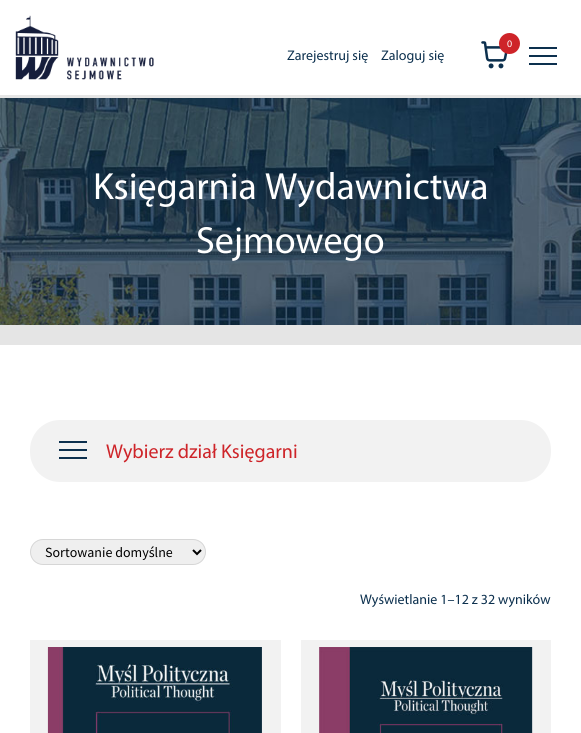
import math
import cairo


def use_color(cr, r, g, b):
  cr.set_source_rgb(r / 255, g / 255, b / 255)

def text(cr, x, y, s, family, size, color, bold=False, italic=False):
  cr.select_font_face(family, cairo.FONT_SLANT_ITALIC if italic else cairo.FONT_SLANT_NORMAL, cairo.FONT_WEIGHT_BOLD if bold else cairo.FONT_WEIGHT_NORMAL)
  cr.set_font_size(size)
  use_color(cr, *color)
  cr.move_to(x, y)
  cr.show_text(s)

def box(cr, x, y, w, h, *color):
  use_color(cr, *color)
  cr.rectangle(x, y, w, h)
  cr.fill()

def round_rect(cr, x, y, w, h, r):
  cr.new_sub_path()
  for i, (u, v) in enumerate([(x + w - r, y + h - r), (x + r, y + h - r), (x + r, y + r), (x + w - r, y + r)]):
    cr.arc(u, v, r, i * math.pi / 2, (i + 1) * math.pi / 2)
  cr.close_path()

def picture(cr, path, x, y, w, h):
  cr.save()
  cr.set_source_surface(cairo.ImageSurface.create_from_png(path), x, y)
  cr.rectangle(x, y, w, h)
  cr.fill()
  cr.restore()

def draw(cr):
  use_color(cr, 255, 255, 255)
  cr.paint()
  picture(cr, "img_01.png", 15, 15, 139, 65)
  picture(cr, "img_02.png", 481, 41, 27, 28)
  use_color(cr, 206, 36, 41)
  cr.arc(509.5, 43.5, 10.5, 0, 2 * math.pi)
  cr.fill()
  box(cr, 529, 47, 28, 2, 12, 48, 78)
  box(cr, 529, 55, 28, 2, 12, 48, 78)
  box(cr, 529, 63, 28, 2, 12, 48, 78)
  box(cr, 0, 95, 581, 3, 229, 229, 229)
  box(cr, 0, 325, 581, 20, 229, 229, 229)
  picture(cr, "img_03.png", 0, 98, 581, 227)
  use_color(cr, 242, 242, 242)
  round_rect(cr, 30, 420, 521, 62, 30)
  cr.fill()
  box(cr, 59, 441, 28, 2, 12, 48, 78)
  box(cr, 59, 449, 28, 2, 12, 48, 78)
  box(cr, 59, 457, 28, 2, 12, 48, 78)
  use_color(cr, 239, 239, 239)
  round_rect(cr, 30.5, 539.5, 175, 25, 12.5)
  cr.fill_preserve()
  use_color(cr, 214, 214, 214)
  cr.set_line_width(1)
  cr.stroke()
  cr.new_path()
  cr.move_to(193, 550)
  cr.line_to(197, 554)
  cr.line_to(201, 550)
  use_color(cr, 0, 0, 0)
  cr.set_line_width(2)
  cr.stroke()
  box(cr, 30, 640, 251, 93, 242, 242, 242)
  picture(cr, "img_04.png", 47, 647, 215, 86)
  box(cr, 301, 640, 250, 93, 242, 242, 242)
  picture(cr, "img_05.png", 319, 647, 214, 86)
  text(cr, 507, 47, "0", "Myriad", 10, (255, 255, 255))
  text(cr, 287, 60, "Zarejestruj się", "Myriad", 14, (12, 48, 78))
  text(cr, 381, 60, "Zaloguj się", "Myriad", 14, (12, 48, 78))
  text(cr, 93, 199, "Księgarnia Wydawnictwa", "Myriad", 38, (255, 255, 255))
  text(cr, 196, 253, "Sejmowego", "Myriad", 38, (255, 255, 255))
  text(cr, 106, 458, "Wybierz dział Księgarni", "Myriad", 20, (206, 36, 41))
  text(cr, 45, 557, "Sortowanie domyślne", "Source Sans Pro", 14, (0, 0, 0))
  text(cr, 360, 604, "Wyświetlanie 1–12 z 32 wyników", "Myriad", 14, (12, 48, 78))


surface = cairo.ImageSurface(cairo.FORMAT_RGB24, 581, 733)
cr = cairo.Context(surface)
options = cairo.FontOptions()
options.set_hint_metrics(cairo.HINT_METRICS_OFF)
options.set_hint_style(cairo.HINT_STYLE_NONE)
cr.set_font_options(options)
cr.set_miter_limit(4)
draw(cr)
surface.write_to_png("out.png")
